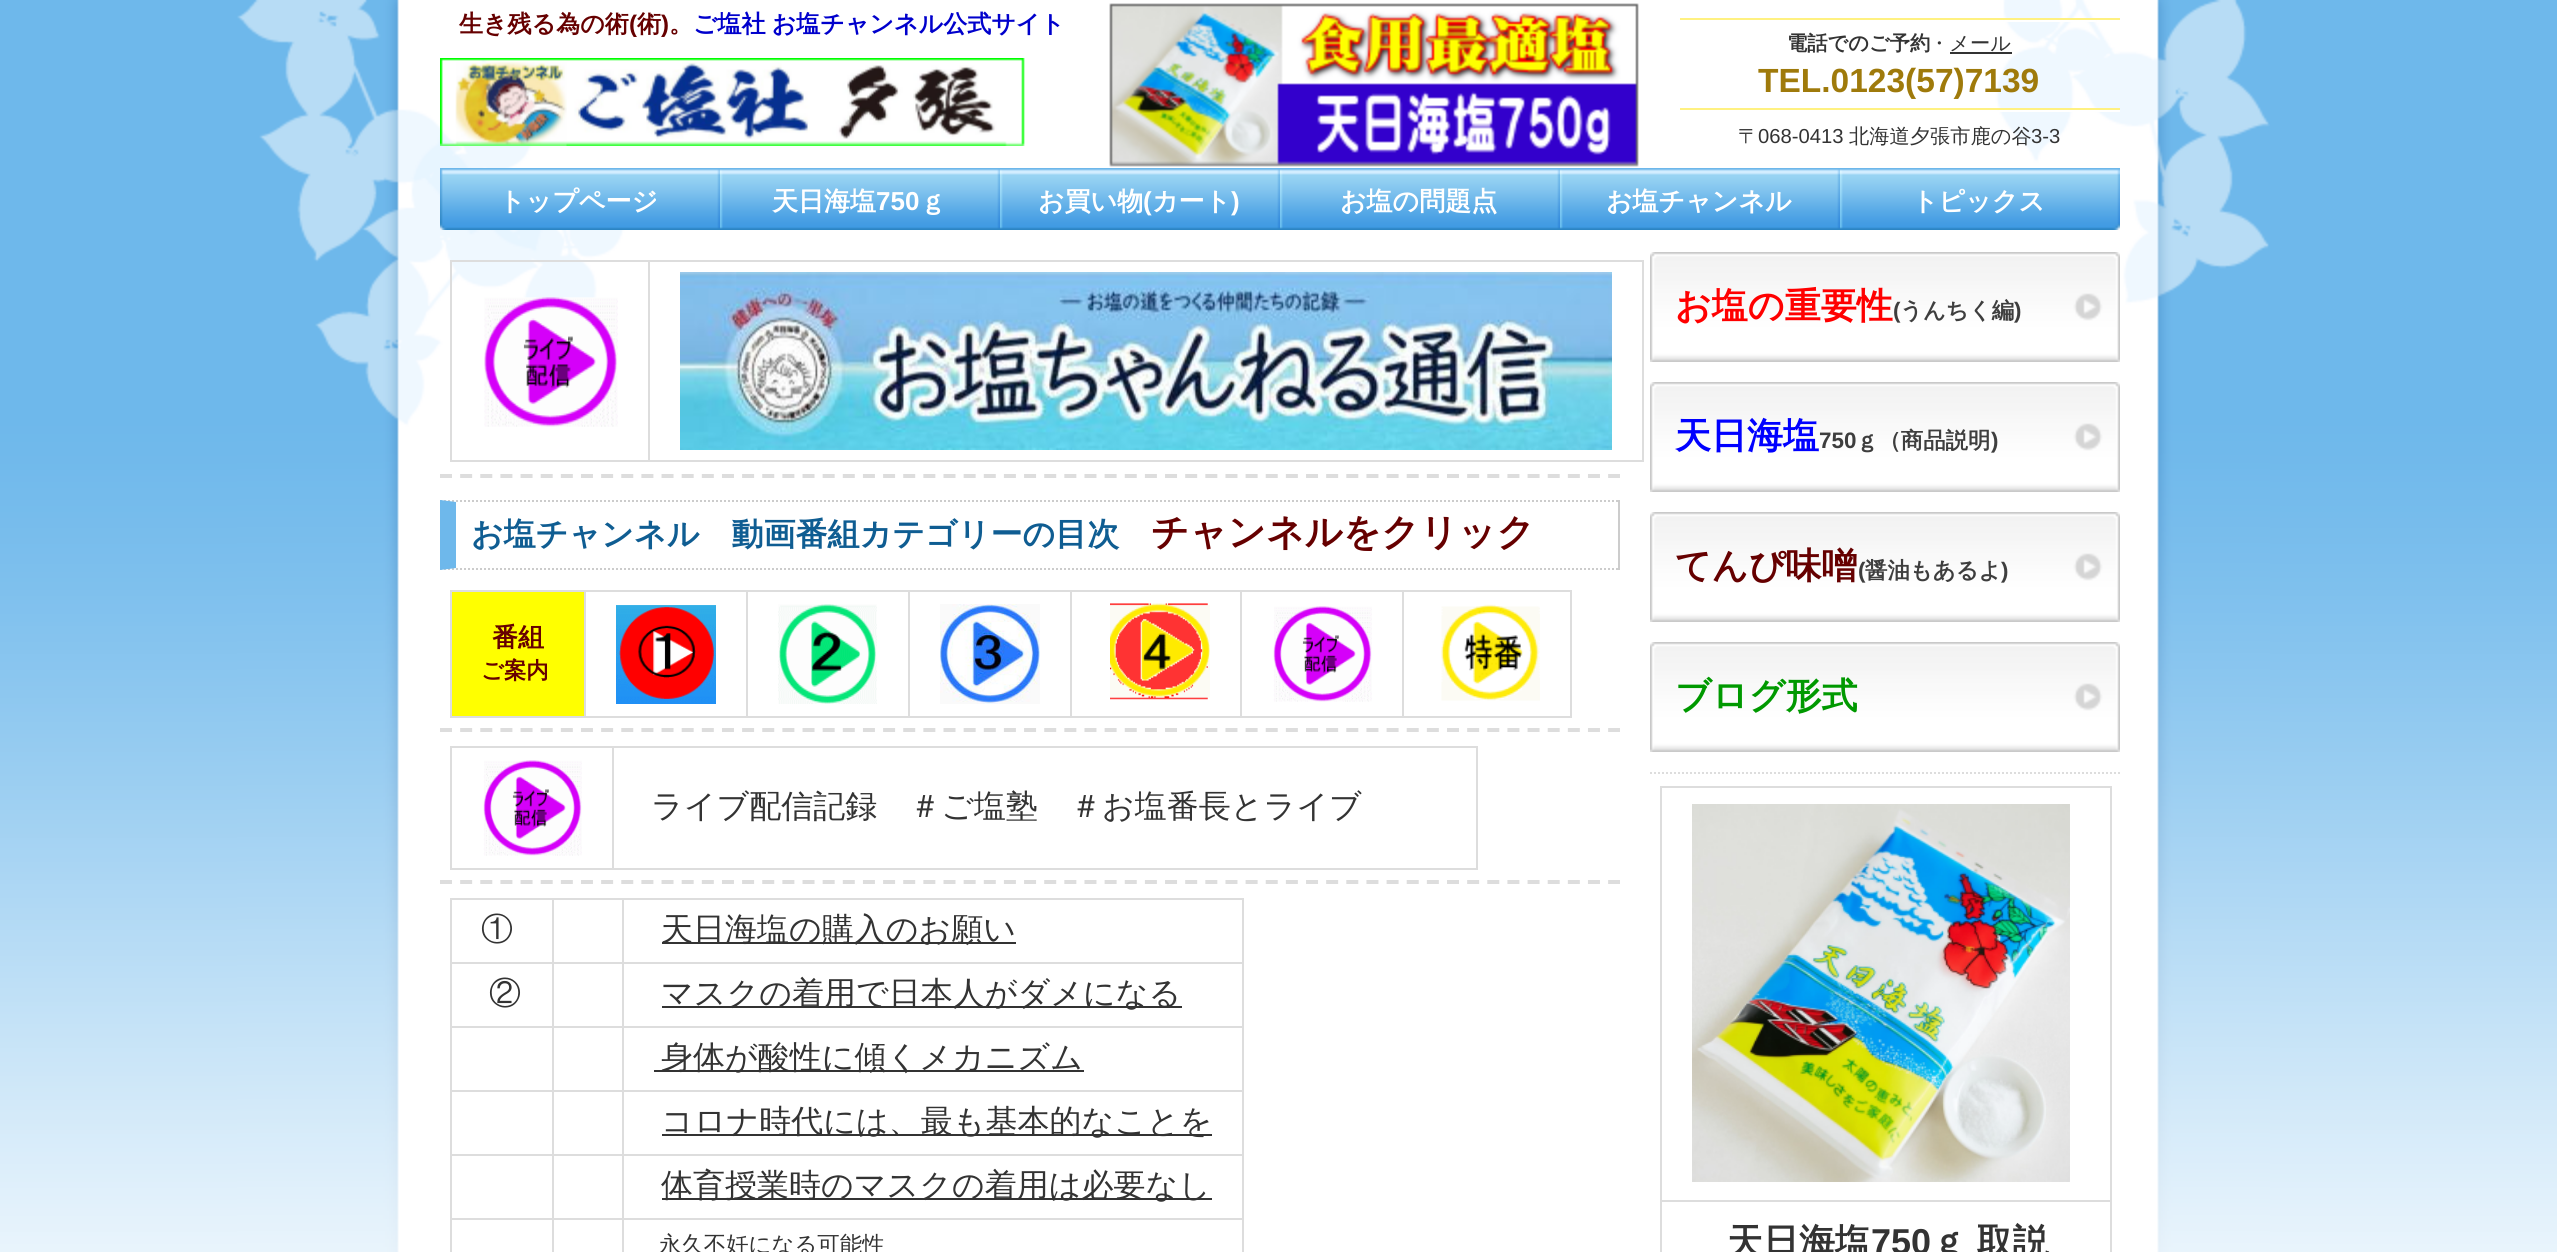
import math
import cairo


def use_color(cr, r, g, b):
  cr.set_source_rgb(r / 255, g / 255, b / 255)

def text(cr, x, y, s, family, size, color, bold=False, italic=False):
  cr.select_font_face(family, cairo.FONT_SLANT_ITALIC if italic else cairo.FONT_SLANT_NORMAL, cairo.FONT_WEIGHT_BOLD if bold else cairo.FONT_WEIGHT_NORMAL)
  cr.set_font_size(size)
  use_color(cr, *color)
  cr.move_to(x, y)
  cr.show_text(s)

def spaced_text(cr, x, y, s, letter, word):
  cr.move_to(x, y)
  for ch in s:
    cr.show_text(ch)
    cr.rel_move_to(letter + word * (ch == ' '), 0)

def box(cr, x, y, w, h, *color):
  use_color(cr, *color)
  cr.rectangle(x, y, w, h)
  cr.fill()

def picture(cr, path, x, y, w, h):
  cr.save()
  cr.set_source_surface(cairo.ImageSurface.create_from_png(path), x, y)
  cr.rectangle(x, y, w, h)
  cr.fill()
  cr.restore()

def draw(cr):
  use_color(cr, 255, 255, 255)
  cr.paint()
  picture(cr, "img_01.png", 0, 0, 2557, 1252)
  picture(cr, "img_02.png", 237, 0, 2033, 1252)
  picture(cr, "img_03.png", 440, 58, 585, 88)
  box(cr, 1680, 18, 440, 2, 255, 241, 129)
  box(cr, 2005, 20, 91, 2, 255, 255, 255)
  box(cr, 1680, 108, 440, 2, 255, 241, 129)
  box(cr, 1950, 52, 62, 2, 51, 51, 51)
  box(cr, 1999, 110, 121, 2, 255, 255, 255)
  picture(cr, "img_04.png", 440, 168, 280, 62)
  picture(cr, "img_05.png", 720, 168, 280, 62)
  picture(cr, "img_05.png", 1000, 168, 280, 62)
  picture(cr, "img_05.png", 1280, 168, 280, 62)
  picture(cr, "img_05.png", 1560, 168, 280, 62)
  picture(cr, "img_06.png", 1840, 168, 280, 62)
  box(cr, 450, 260, 1194, 2, 221, 221, 221)
  box(cr, 450, 260, 2, 202, 221, 221, 221)
  box(cr, 1642, 260, 2, 202, 221, 221, 221)
  box(cr, 648, 460, 996, 2, 221, 221, 221)
  box(cr, 648, 260, 2, 202, 221, 221, 221)
  box(cr, 450, 460, 200, 2, 221, 221, 221)
  picture(cr, "img_07.png", 484, 297, 134, 130)
  picture(cr, "img_08.png", 680, 272, 932, 178)
  cr.new_path()
  cr.move_to(440, 476)
  cr.line_to(1620, 476)
  cr.set_line_width(4)
  cr.set_dash([12, 8.14])
  cr.stroke()
  cr.new_path()
  cr.move_to(440, 501)
  cr.line_to(1620, 501)
  use_color(cr, 204, 204, 204)
  cr.set_line_width(2)
  cr.set_dash([2, 2])
  cr.stroke()
  box(cr, 1618, 500, 2, 70, 204, 204, 204)
  cr.new_path()
  cr.move_to(440, 569)
  cr.line_to(1620, 569)
  cr.stroke()
  use_color(cr, 110, 184, 235)
  cr.new_path()
  cr.move_to(440, 570)
  cr.line_to(440, 500)
  cr.line_to(456, 502)
  cr.line_to(456, 568)
  cr.close_path()
  cr.fill()
  box(cr, 450, 590, 1122, 2, 221, 221, 221)
  box(cr, 450, 590, 2, 128, 221, 221, 221)
  box(cr, 452, 592, 132, 124, 255, 255, 0)
  box(cr, 1570, 590, 2, 128, 221, 221, 221)
  box(cr, 1402, 716, 170, 2, 221, 221, 221)
  box(cr, 1402, 590, 2, 128, 221, 221, 221)
  box(cr, 1240, 716, 164, 2, 221, 221, 221)
  box(cr, 1240, 590, 2, 128, 221, 221, 221)
  box(cr, 1070, 716, 172, 2, 221, 221, 221)
  box(cr, 1070, 590, 2, 128, 221, 221, 221)
  box(cr, 908, 716, 164, 2, 221, 221, 221)
  box(cr, 908, 590, 2, 128, 221, 221, 221)
  box(cr, 746, 716, 164, 2, 221, 221, 221)
  box(cr, 746, 590, 2, 128, 221, 221, 221)
  box(cr, 584, 716, 164, 2, 221, 221, 221)
  box(cr, 584, 590, 2, 128, 221, 221, 221)
  box(cr, 450, 716, 136, 2, 221, 221, 221)
  picture(cr, "img_09.png", 616, 605, 100, 99)
  picture(cr, "img_10.png", 778, 604, 99, 100)
  picture(cr, "img_11.png", 940, 604, 100, 100)
  picture(cr, "img_12.png", 1110, 603, 100, 97)
  picture(cr, "img_13.png", 1273, 606, 99, 96)
  picture(cr, "img_14.png", 1441, 604, 99, 97)
  cr.new_path()
  cr.move_to(440, 730)
  cr.line_to(1620, 730)
  cr.set_line_width(4)
  cr.set_dash([12, 8.14])
  cr.stroke()
  box(cr, 450, 746, 1028, 2, 221, 221, 221)
  box(cr, 450, 746, 2, 124, 221, 221, 221)
  box(cr, 1476, 746, 2, 124, 221, 221, 221)
  box(cr, 612, 868, 866, 2, 221, 221, 221)
  box(cr, 612, 746, 2, 124, 221, 221, 221)
  box(cr, 450, 868, 164, 2, 221, 221, 221)
  picture(cr, "img_15.png", 483, 760, 99, 96)
  cr.new_path()
  cr.move_to(440, 882)
  cr.line_to(1620, 882)
  cr.stroke()
  box(cr, 450, 898, 794, 2, 221, 221, 221)
  box(cr, 450, 898, 2, 354, 221, 221, 221)
  box(cr, 622, 962, 622, 2, 221, 221, 221)
  box(cr, 622, 1026, 622, 2, 221, 221, 221)
  box(cr, 622, 1090, 622, 2, 221, 221, 221)
  box(cr, 622, 1154, 622, 2, 221, 221, 221)
  box(cr, 622, 1218, 622, 2, 221, 221, 221)
  box(cr, 622, 1218, 2, 34, 221, 221, 221)
  box(cr, 552, 1218, 72, 2, 221, 221, 221)
  box(cr, 622, 1154, 2, 66, 221, 221, 221)
  box(cr, 552, 1154, 72, 2, 221, 221, 221)
  box(cr, 622, 1090, 2, 66, 221, 221, 221)
  box(cr, 552, 1090, 72, 2, 221, 221, 221)
  box(cr, 622, 1026, 2, 66, 221, 221, 221)
  box(cr, 552, 1026, 72, 2, 221, 221, 221)
  box(cr, 622, 962, 2, 66, 221, 221, 221)
  box(cr, 552, 962, 72, 2, 221, 221, 221)
  box(cr, 552, 1218, 2, 34, 221, 221, 221)
  box(cr, 450, 1218, 104, 2, 221, 221, 221)
  box(cr, 552, 1154, 2, 66, 221, 221, 221)
  box(cr, 450, 1154, 104, 2, 221, 221, 221)
  box(cr, 552, 1090, 2, 66, 221, 221, 221)
  box(cr, 450, 1090, 104, 2, 221, 221, 221)
  box(cr, 552, 1026, 2, 66, 221, 221, 221)
  box(cr, 450, 1026, 104, 2, 221, 221, 221)
  box(cr, 552, 962, 2, 66, 221, 221, 221)
  box(cr, 450, 962, 104, 2, 221, 221, 221)
  box(cr, 552, 898, 2, 66, 221, 221, 221)
  box(cr, 622, 898, 2, 66, 221, 221, 221)
  box(cr, 662, 942, 354, 2, 51, 51, 51)
  box(cr, 1242, 1218, 2, 34, 221, 221, 221)
  box(cr, 1242, 1154, 2, 66, 221, 221, 221)
  box(cr, 1242, 1090, 2, 66, 221, 221, 221)
  box(cr, 1242, 1026, 2, 66, 221, 221, 221)
  box(cr, 1242, 898, 2, 130, 221, 221, 221)
  box(cr, 662, 1006, 520, 2, 51, 51, 51)
  box(cr, 654, 1070, 430, 2, 51, 51, 51)
  box(cr, 662, 1134, 550, 2, 51, 51, 51)
  box(cr, 662, 1198, 550, 2, 51, 51, 51)
  picture(cr, "img_16.png", 1650, 252, 470, 110)
  picture(cr, "img_16.png", 1650, 382, 470, 110)
  picture(cr, "img_16.png", 1650, 512, 470, 110)
  picture(cr, "img_16.png", 1650, 642, 470, 110)
  cr.new_path()
  cr.move_to(1650, 773)
  cr.line_to(2120, 773)
  use_color(cr, 221, 221, 221)
  cr.set_line_width(2)
  cr.set_dash([2, 2])
  cr.stroke()
  box(cr, 1660, 786, 452, 2, 221, 221, 221)
  box(cr, 1660, 786, 2, 466, 221, 221, 221)
  box(cr, 2110, 786, 2, 466, 221, 221, 221)
  box(cr, 1660, 1200, 452, 2, 221, 221, 221)
  picture(cr, "img_17.png", 1692, 804, 378, 378)
  text(cr, 459, 32, "生き残る為の術", "WenQuanYi Zen Hei", 24, (102, 0, 0), bold=True)
  text(cr, 629, 32, "(", "Liberation Sans", 24, (102, 0, 0), bold=True)
  text(cr, 637, 32, "術", "WenQuanYi Zen Hei", 24, (102, 0, 0), bold=True)
  text(cr, 661, 32, ")", "Liberation Sans", 24, (102, 0, 0), bold=True)
  text(cr, 669, 32, "。", "WenQuanYi Zen Hei", 24, (102, 0, 0), bold=True)
  use_color(cr, 0, 0, 204)
  spaced_text(cr, 693, 32, "ご塩社 お塩チャンネル公式サイト", 0, -1)
  text(cr, 1787, 50, "電話でのご予約", "WenQuanYi Zen Hei", 20.25, (51, 51, 51), bold=True)
  text(cr, 1929, 50, "・メール", "WenQuanYi Zen Hei Medium", 20.25, (51, 51, 51))
  text(cr, 1758, 92, "TEL.0123(57)7139", "Liberation Sans", 33.5, (159, 122, 11), bold=True)
  text(cr, 1738, 143, "〒", "WenQuanYi Zen Hei Medium", 20.25, (51, 51, 51))
  text(cr, 1758, 143, "068-0413", "Liberation Sans", 20.25, (51, 51, 51))
  text(cr, 1849, 143, "北海道夕張市鹿の谷", "WenQuanYi Zen Hei Medium", 20.25, (51, 51, 51))
  text(cr, 2031, 143, "3-3", "Liberation Sans", 20.25, (51, 51, 51))
  text(cr, 499, 210, "トップページ", "WenQuanYi Zen Hei", 26, (255, 255, 255), bold=True)
  text(cr, 772, 210, "天日海塩", "WenQuanYi Zen Hei", 26, (255, 255, 255), bold=True)
  text(cr, 876, 210, "750", "Liberation Sans", 26, (255, 255, 255), bold=True)
  text(cr, 920, 210, "ｇ", "WenQuanYi Zen Hei", 26, (255, 255, 255), bold=True)
  text(cr, 1038, 210, "お買い物", "WenQuanYi Zen Hei", 26, (255, 255, 255), bold=True)
  text(cr, 1143, 210, "(", "Liberation Sans", 26, (255, 255, 255), bold=True)
  text(cr, 1152, 210, "カート", "WenQuanYi Zen Hei", 26, (255, 255, 255), bold=True)
  text(cr, 1231, 210, ")", "Liberation Sans", 26, (255, 255, 255), bold=True)
  text(cr, 1340, 210, "お塩の問題点", "WenQuanYi Zen Hei", 26, (255, 255, 255), bold=True)
  text(cr, 1606, 210, "お塩チャンネル", "WenQuanYi Zen Hei", 26, (255, 255, 255), bold=True)
  text(cr, 1912, 210, "トピックス", "WenQuanYi Zen Hei", 26, (255, 255, 255), bold=True)
  text(cr, 471, 545, "お塩チャンネル　動画番組カテゴリーの目次", "WenQuanYi Zen Hei", 32, (15, 93, 146), bold=True)
  text(cr, 1151, 545, "チャンネルをクリック", "WenQuanYi Zen Hei", 37.5, (102, 0, 0), bold=True)
  text(cr, 492, 646, "番組", "WenQuanYi Zen Hei", 26, (102, 0, 0), bold=True)
  text(cr, 481, 678, "ご案内", "WenQuanYi Zen Hei", 22.4, (102, 0, 0), bold=True)
  text(cr, 651, 817, "ライブ配信記録　＃ご塩塾　＃お塩番長とライブ", "WenQuanYi Zen Hei Medium", 32, (51, 51, 51))
  text(cr, 481, 940, "①", "WenQuanYi Zen Hei Medium", 32, (51, 51, 51))
  text(cr, 661, 940, "天日海塩の購入のお願い", "WenQuanYi Zen Hei Medium", 32, (51, 51, 51))
  text(cr, 489, 1004, "②", "WenQuanYi Zen Hei Medium", 32, (51, 51, 51))
  text(cr, 661, 1004, "マスクの着用で日本人がダメになる", "WenQuanYi Zen Hei Medium", 32, (51, 51, 51))
  text(cr, 661, 1068, "身体が酸性に傾くメカニズム", "WenQuanYi Zen Hei Medium", 32, (51, 51, 51))
  text(cr, 661, 1132, "コロナ時代には、最も基本的なことを", "WenQuanYi Zen Hei Medium", 32, (51, 51, 51))
  text(cr, 661, 1196, "体育授業時のマスクの着用は必要なし", "WenQuanYi Zen Hei Medium", 32, (51, 51, 51))
  text(cr, 659, 1252, "永久不妊になる可能性", "WenQuanYi Zen Hei Medium", 22.4, (51, 51, 51))
  text(cr, 1675, 318, "お塩の重要性", "WenQuanYi Zen Hei", 36, (255, 0, 0), bold=True)
  text(cr, 1893, 318, "(", "Liberation Sans", 22.4, (62, 62, 62), bold=True)
  text(cr, 1900, 318, "うんちく編", "WenQuanYi Zen Hei", 22.4, (62, 62, 62), bold=True)
  text(cr, 2014, 318, ")", "Liberation Sans", 22.4, (62, 62, 62), bold=True)
  text(cr, 1675, 448, "天日海塩", "WenQuanYi Zen Hei", 36, (0, 0, 255), bold=True)
  text(cr, 1819, 448, "750", "Liberation Sans", 22.4, (62, 62, 62), bold=True)
  text(cr, 1856, 448, "ｇ（商品説明", "WenQuanYi Zen Hei", 22.4, (62, 62, 62), bold=True)
  text(cr, 1991, 448, ")", "Liberation Sans", 22.4, (62, 62, 62), bold=True)
  text(cr, 1675, 578, "てんぴ味噌", "WenQuanYi Zen Hei", 36, (102, 0, 0), bold=True)
  text(cr, 1858, 578, "(", "Liberation Sans", 22.4, (62, 62, 62), bold=True)
  text(cr, 1865, 578, "醤油もあるよ", "WenQuanYi Zen Hei", 22.4, (62, 62, 62), bold=True)
  text(cr, 2001, 578, ")", "Liberation Sans", 22.4, (62, 62, 62), bold=True)
  text(cr, 1675, 708, "ブログ形式", "WenQuanYi Zen Hei", 36, (0, 153, 0), bold=True)
  text(cr, 1727, 1254, "天日海塩", "WenQuanYi Zen Hei", 36, (51, 51, 51), bold=True)
  text(cr, 1871, 1254, "750", "Liberation Sans", 36, (51, 51, 51), bold=True)
  cr.select_font_face("WenQuanYi Zen Hei", cairo.FONT_SLANT_NORMAL, cairo.FONT_WEIGHT_BOLD)
  spaced_text(cr, 1931, 1254, "ｇ 取説", 0, -1)


surface = cairo.ImageSurface(cairo.FORMAT_RGB24, 2557, 1252)
cr = cairo.Context(surface)
options = cairo.FontOptions()
options.set_hint_metrics(cairo.HINT_METRICS_OFF)
options.set_hint_style(cairo.HINT_STYLE_NONE)
cr.set_font_options(options)
cr.set_miter_limit(4)
draw(cr)
surface.write_to_png("out.png")
